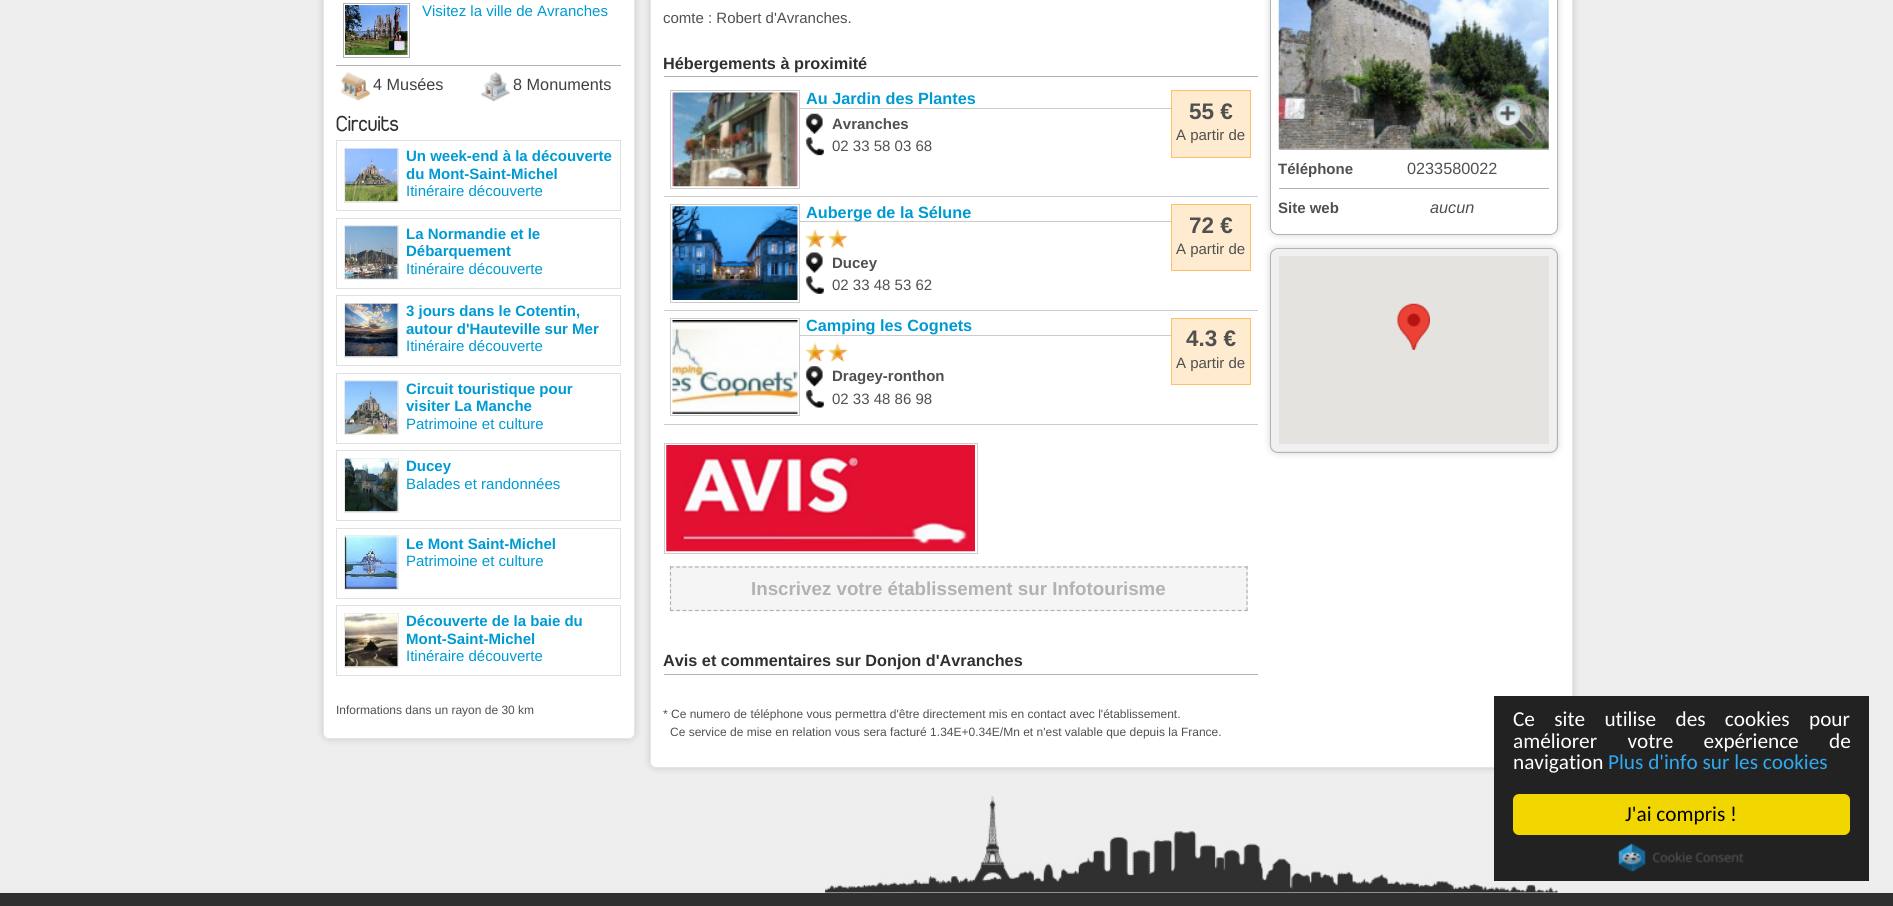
import math
import cairo


def use_color(cr, r, g, b):
  cr.set_source_rgb(r / 255, g / 255, b / 255)

def text(cr, x, y, s, family, size, color, bold=False, italic=False):
  cr.select_font_face(family, cairo.FONT_SLANT_ITALIC if italic else cairo.FONT_SLANT_NORMAL, cairo.FONT_WEIGHT_BOLD if bold else cairo.FONT_WEIGHT_NORMAL)
  cr.set_font_size(size)
  use_color(cr, *color)
  cr.move_to(x, y)
  cr.show_text(s)

def spaced_text(cr, x, y, s, letter, word):
  cr.move_to(x, y)
  for ch in s:
    cr.show_text(ch)
    cr.rel_move_to(letter + word * (ch == ' '), 0)

def box(cr, x, y, w, h, *color):
  use_color(cr, *color)
  cr.rectangle(x, y, w, h)
  cr.fill()

def round_rect(cr, x, y, w, h, r):
  cr.new_sub_path()
  for i, (u, v) in enumerate([(x + w - r, y + h - r), (x + r, y + h - r), (x + r, y + r), (x + w - r, y + r)]):
    cr.arc(u, v, r, i * math.pi / 2, (i + 1) * math.pi / 2)
  cr.close_path()

def shadow(cr, x, y, w, h, r, blur, alpha):
  cr.push_group_with_content(cairo.CONTENT_ALPHA)
  cr.set_operator(cairo.OPERATOR_SOURCE)
  for i in range(15, -16, -2):
    e = blur * i / 6
    if min(w, h) + 2 * e > 0:
      cr.set_source_rgba(0, 0, 0, alpha * math.erfc((i - 1) / 8.5) / 2)
      round_rect(cr, x - e, y - e, w + 2 * e, h + 2 * e, max(0, min(r + e + blur * .6, min(w, h) / 2 + e)))
      cr.fill()
  cr.mask(cr.pop_group())

def picture(cr, path, x, y, w, h):
  cr.save()
  cr.set_source_surface(cairo.ImageSurface.create_from_png(path), x, y)
  cr.rectangle(x, y, w, h)
  cr.fill()
  cr.restore()

def draw(cr):
  use_color(cr, 238, 238, 238)
  cr.paint()
  use_color(cr, 0, 0, 0)
  shadow(cr, 323, -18, 312, 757, 6, 4, 0.16)
  use_color(cr, 255, 255, 255)
  round_rect(cr, 323, -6, 312, 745, 6)
  cr.fill()
  round_rect(cr, 323.5, -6.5, 311, 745, 5.5)
  cr.set_source_rgba(0.741, 0.741, 0.741, 0.39)
  cr.set_line_width(1)
  cr.stroke()
  box(cr, 336, 65, 285, 1, 178, 178, 178)
  cr.rectangle(343.5, 3.5, 66, 54)
  cr.stroke()
  picture(cr, "img_01.png", 345, 5, 63, 50)
  picture(cr, "img_02.png", 341, 71, 30, 30)
  picture(cr, "img_03.png", 481, 72, 29, 30)
  cr.rectangle(336.5, 140.5, 284, 70)
  use_color(cr, 224, 224, 224)
  cr.stroke()
  cr.rectangle(344.5, 148.5, 54, 54)
  use_color(cr, 235, 235, 235)
  cr.stroke()
  picture(cr, "img_04.png", 345, 148, 53, 54)
  cr.rectangle(336.5, 218.5, 284, 70)
  use_color(cr, 224, 224, 224)
  cr.stroke()
  cr.rectangle(344.5, 225.5, 54, 54)
  use_color(cr, 235, 235, 235)
  cr.stroke()
  picture(cr, "img_05.png", 345, 226, 53, 53)
  cr.rectangle(336.5, 295.5, 284, 70)
  use_color(cr, 224, 224, 224)
  cr.stroke()
  cr.rectangle(344.5, 303.5, 54, 54)
  use_color(cr, 235, 235, 235)
  cr.stroke()
  picture(cr, "img_06.png", 345, 303, 53, 54)
  cr.rectangle(336.5, 373.5, 284, 70)
  use_color(cr, 224, 224, 224)
  cr.stroke()
  cr.rectangle(344.5, 380.5, 54, 54)
  use_color(cr, 235, 235, 235)
  cr.stroke()
  picture(cr, "img_07.png", 345, 381, 53, 53)
  cr.rectangle(336.5, 450.5, 284, 70)
  use_color(cr, 224, 224, 224)
  cr.stroke()
  cr.rectangle(344.5, 458.5, 54, 54)
  use_color(cr, 235, 235, 235)
  cr.stroke()
  picture(cr, "img_08.png", 345, 458, 53, 54)
  cr.rectangle(336.5, 528.5, 284, 70)
  use_color(cr, 224, 224, 224)
  cr.stroke()
  cr.rectangle(344.5, 535.5, 54, 54)
  use_color(cr, 235, 235, 235)
  cr.stroke()
  picture(cr, "img_09.png", 345, 536, 53, 53)
  cr.rectangle(336.5, 605.5, 284, 70)
  use_color(cr, 224, 224, 224)
  cr.stroke()
  cr.rectangle(344.5, 613.5, 54, 54)
  use_color(cr, 235, 235, 235)
  cr.stroke()
  picture(cr, "img_10.png", 345, 613, 53, 54)
  use_color(cr, 0, 0, 0)
  shadow(cr, 650, -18, 923, 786, 6, 4, 0.16)
  use_color(cr, 255, 255, 255)
  round_rect(cr, 650, -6, 923, 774, 6)
  cr.fill()
  round_rect(cr, 650.5, -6.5, 922, 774, 5.5)
  cr.set_source_rgba(0.741, 0.741, 0.741, 0.39)
  cr.stroke()
  box(cr, 664, 76, 594, 1, 178, 178, 178)
  box(cr, 664, 196, 594, 1, 204, 204, 204)
  cr.rectangle(670.5, 90.5, 129, 98)
  cr.stroke()
  picture(cr, "img_11.png", 672, 92, 126, 95)
  box(cr, 800, 108, 371, 1, 204, 204, 204)
  picture(cr, "img_12.png", 805, 113, 18, 21)
  picture(cr, "img_13.png", 805, 137, 20, 19)
  use_color(cr, 255, 235, 208)
  cr.rectangle(1171.5, 90.5, 79, 67)
  cr.fill_preserve()
  use_color(cr, 255, 191, 102)
  cr.stroke()
  use_color(cr, 0, 0, 0)
  shadow(cr, 1270, 248, 288, 205, 8, 4, 0.16)
  box(cr, 664, 310, 594, 1, 204, 204, 204)
  cr.rectangle(670.5, 204.5, 129, 98)
  cr.stroke()
  picture(cr, "img_14.png", 672, 206, 126, 94)
  box(cr, 800, 221, 371, 1, 204, 204, 204)
  use_color(cr, 255, 235, 208)
  cr.rectangle(1171.5, 204.5, 79, 66)
  cr.fill_preserve()
  use_color(cr, 255, 191, 102)
  cr.stroke()
  picture(cr, "img_15.png", 805, 228, 43, 20)
  picture(cr, "img_16.png", 805, 252, 18, 21)
  picture(cr, "img_17.png", 805, 276, 20, 18)
  box(cr, 664, 424, 594, 1, 204, 204, 204)
  cr.rectangle(670.5, 318.5, 129, 97)
  cr.stroke()
  picture(cr, "img_18.png", 672, 320, 126, 94)
  box(cr, 800, 335, 371, 1, 204, 204, 204)
  use_color(cr, 255, 235, 208)
  cr.rectangle(1171.5, 318.5, 79, 66)
  cr.fill_preserve()
  use_color(cr, 255, 191, 102)
  cr.stroke()
  picture(cr, "img_19.png", 805, 342, 43, 20)
  picture(cr, "img_20.png", 805, 366, 18, 21)
  picture(cr, "img_21.png", 805, 389, 20, 19)
  cr.rectangle(664.5, 443.5, 313, 110)
  use_color(cr, 204, 204, 204)
  cr.stroke()
  picture(cr, "img_22.png", 666, 445, 309, 107)
  box(cr, 670, 566, 578, 45, 245, 245, 245)
  cr.new_path()
  cr.move_to(670, 567)
  cr.line_to(1247.5, 567)
  use_color(cr, 178, 178, 178)
  cr.set_line_width(1.2)
  cr.set_dash([3.75, 2.49])
  cr.stroke()
  cr.new_path()
  cr.move_to(1247, 566)
  cr.line_to(1247, 611)
  cr.set_dash([3.75, 2.14])
  cr.stroke()
  cr.new_path()
  cr.move_to(670, 610.5)
  cr.line_to(1247.5, 610.5)
  cr.set_dash([3.75, 2.49])
  cr.stroke()
  cr.new_path()
  cr.move_to(670.5, 566)
  cr.line_to(670.5, 611)
  cr.set_dash([3.75, 2.14])
  cr.stroke()
  box(cr, 664, 674, 594, 1, 178, 178, 178)
  cr.save()
  cr.set_fill_rule(cairo.FILL_RULE_EVEN_ODD)
  cr.new_path()
  cr.move_to(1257, 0)
  cr.line_to(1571, 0)
  cr.line_to(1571, 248)
  cr.line_to(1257, 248)
  cr.close_path()
  cr.move_to(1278, -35)
  cr.line_to(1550, -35)
  cr.curve_to(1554.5, -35, 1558, -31.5, 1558, -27)
  cr.line_to(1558, 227)
  cr.curve_to(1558, 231.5, 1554.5, 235, 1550, 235)
  cr.line_to(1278, 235)
  cr.curve_to(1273.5, 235, 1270, 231.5, 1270, 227)
  cr.line_to(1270, -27)
  cr.curve_to(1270, -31.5, 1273.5, -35, 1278, -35)
  cr.close_path()
  cr.clip()
  use_color(cr, 0, 0, 0)
  shadow(cr, 1270, -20, 288, 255, 8, 4, 0.16)
  cr.restore()
  round_rect(cr, 1270.5, -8.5, 287, 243, 7.5)
  cr.set_line_width(1)
  cr.set_dash([])
  cr.stroke()
  picture(cr, "img_23.png", 1278, 0, 271, 149)
  picture(cr, "img_24.png", 1492, 97, 45, 46)
  box(cr, 1279, 149, 270, 1, 178, 178, 178)
  box(cr, 1279, 188, 270, 1, 178, 178, 178)
  use_color(cr, 240, 240, 240)
  round_rect(cr, 1271, 249, 285, 202, 6)
  cr.fill()
  round_rect(cr, 1270.5, 248.5, 287, 204, 7.5)
  use_color(cr, 178, 178, 178)
  cr.stroke()
  box(cr, 1279, 256, 270, 188, 229, 227, 223)
  picture(cr, "img_25.png", 1397, 303, 33, 47)
  picture(cr, "img_27.png", 825, 796, 733, 97)
  box(cr, 1494, 696, 375, 185, 34, 34, 34)
  use_color(cr, 241, 214, 0)
  round_rect(cr, 1513, 794, 337, 41, 6)
  cr.fill()
  picture(cr, "img_26.png", 1618, 843, 126, 29)
  box(cr, 0, 893, 1893, 13, 48, 48, 48)
  text(cr, 422, 16, "Visitez la ville de Avranches", "Liberation Sans", 15, (0, 154, 210))
  text(cr, 373, 90, "4 Musées", "Liberation Sans", 16.25, (64, 64, 64))
  text(cr, 513, 90, "8 Monuments", "Liberation Sans", 16.25, (64, 64, 64))
  text(cr, 336, 131, "Circuits", "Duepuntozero", 22.5, (48, 48, 48))
  text(cr, 406, 161, "Un week-end à la découverte", "Liberation Sans", 15, (0, 154, 210), bold=True)
  text(cr, 406, 179, "du Mont-Saint-Michel", "Liberation Sans", 15, (0, 154, 210), bold=True)
  text(cr, 406, 196, "Itinéraire découverte", "Liberation Sans", 15, (0, 154, 210))
  text(cr, 406, 239, "La Normandie et le", "Liberation Sans", 15, (0, 154, 210), bold=True)
  text(cr, 406, 256, "Débarquement", "Liberation Sans", 15, (0, 154, 210), bold=True)
  text(cr, 406, 274, "Itinéraire découverte", "Liberation Sans", 15, (0, 154, 210))
  text(cr, 406, 316, "3 jours dans le Cotentin,", "Liberation Sans", 15, (0, 154, 210), bold=True)
  text(cr, 406, 334, "autour d'Hauteville sur Mer", "Liberation Sans", 15, (0, 154, 210), bold=True)
  text(cr, 406, 351, "Itinéraire découverte", "Liberation Sans", 15, (0, 154, 210))
  text(cr, 406, 394, "Circuit touristique pour", "Liberation Sans", 15, (0, 154, 210), bold=True)
  text(cr, 406, 411, "visiter La Manche", "Liberation Sans", 15, (0, 154, 210), bold=True)
  text(cr, 406, 429, "Patrimoine et culture", "Liberation Sans", 15, (0, 154, 210))
  text(cr, 406, 471, "Ducey", "Liberation Sans", 15, (0, 154, 210), bold=True)
  text(cr, 406, 489, "Balades et randonnées", "Liberation Sans", 15, (0, 154, 210))
  text(cr, 406, 549, "Le Mont Saint-Michel", "Liberation Sans", 15, (0, 154, 210), bold=True)
  text(cr, 406, 566, "Patrimoine et culture", "Liberation Sans", 15, (0, 154, 210))
  text(cr, 406, 626, "Découverte de la baie du", "Liberation Sans", 15, (0, 154, 210), bold=True)
  text(cr, 406, 644, "Mont-Saint-Michel", "Liberation Sans", 15, (0, 154, 210), bold=True)
  text(cr, 406, 661, "Itinéraire découverte", "Liberation Sans", 15, (0, 154, 210))
  text(cr, 336, 714, "Informations dans un rayon de 30 km", "Liberation Sans", 12, (80, 80, 80))
  text(cr, 663, 23, "comte : Robert d'Avranches.", "Liberation Sans", 15, (80, 80, 80))
  text(cr, 663, 69, "Hébergements à proximité", "Liberation Sans", 16.25, (48, 48, 48), bold=True)
  text(cr, 806, 104, "Au Jardin des Plantes", "Liberation Sans", 16.25, (0, 154, 210), bold=True)
  text(cr, 832, 129, "Avranches", "Liberation Sans", 15, (80, 80, 80), bold=True)
  text(cr, 832, 151, "02 33 58 03 68", "Liberation Sans", 15, (80, 80, 80))
  text(cr, 1189, 119, "55 €", "Liberation Sans", 22.5, (80, 80, 80), bold=True)
  text(cr, 1176, 140, "A partir de", "Liberation Sans", 15, (80, 80, 80))
  text(cr, 806, 218, "Auberge de la Sélune", "Liberation Sans", 16.25, (0, 154, 210), bold=True)
  text(cr, 1189, 233, "72 €", "Liberation Sans", 22.5, (80, 80, 80), bold=True)
  text(cr, 1176, 254, "A partir de", "Liberation Sans", 15, (80, 80, 80))
  text(cr, 832, 268, "Ducey", "Liberation Sans", 15, (80, 80, 80), bold=True)
  text(cr, 832, 290, "02 33 48 53 62", "Liberation Sans", 15, (80, 80, 80))
  text(cr, 806, 331, "Camping les Cognets", "Liberation Sans", 16.25, (0, 154, 210), bold=True)
  text(cr, 1186, 346, "4.3 €", "Liberation Sans", 22.5, (80, 80, 80), bold=True)
  text(cr, 1176, 368, "A partir de", "Liberation Sans", 15, (80, 80, 80))
  text(cr, 832, 381, "Dragey-ronthon", "Liberation Sans", 15, (80, 80, 80), bold=True)
  text(cr, 832, 404, "02 33 48 86 98", "Liberation Sans", 15, (80, 80, 80))
  text(cr, 751, 595, "Inscrivez votre établissement sur Infotourisme", "Liberation Sans", 18.75, (178, 178, 178), bold=True)
  text(cr, 663, 666, "Avis et commentaires sur Donjon d'Avranches", "Liberation Sans", 16.25, (48, 48, 48), bold=True)
  text(cr, 1278, 174, "Téléphone", "Liberation Sans", 15, (80, 80, 80), bold=True)
  text(cr, 1407, 174, "0233580022", "Liberation Sans", 16.25, (80, 80, 80))
  text(cr, 1278, 213, "Site web", "Liberation Sans", 15, (80, 80, 80), bold=True)
  text(cr, 1430, 213, "aucun", "Liberation Sans", 16.25, (80, 80, 80), italic=True)
  text(cr, 663, 718, "* Ce numero de téléphone vous permettra d'être directement mis en contact avec l'établissement.", "Liberation Sans", 12, (80, 80, 80))
  text(cr, 670, 736, "Ce service de mise en relation vous sera facturé 1.34E+0.34E/Mn et n'est valable que depuis la France.", "Liberation Sans", 12, (80, 80, 80))
  cr.select_font_face("Carlito")
  cr.set_font_size(21.25)
  use_color(cr, 255, 255, 255)
  spaced_text(cr, 1513, 726, "Ce site utilise des cookies pour", 0, 14.5)
  spaced_text(cr, 1513, 748, "améliorer votre expérience de", 0, 25.5)
  text(cr, 1513, 769, "navigation", "Carlito", 21.25, (255, 255, 255))
  text(cr, 1608, 769, "Plus d'info sur les cookies", "Carlito", 21.25, (49, 168, 240))
  text(cr, 1625, 821, "J'ai compris !", "Carlito", 21.25, (0, 0, 0))


surface = cairo.ImageSurface(cairo.FORMAT_RGB24, 1893, 906)
cr = cairo.Context(surface)
options = cairo.FontOptions()
options.set_hint_metrics(cairo.HINT_METRICS_OFF)
options.set_hint_style(cairo.HINT_STYLE_NONE)
cr.set_font_options(options)
cr.set_miter_limit(4)
draw(cr)
surface.write_to_png("out.png")
